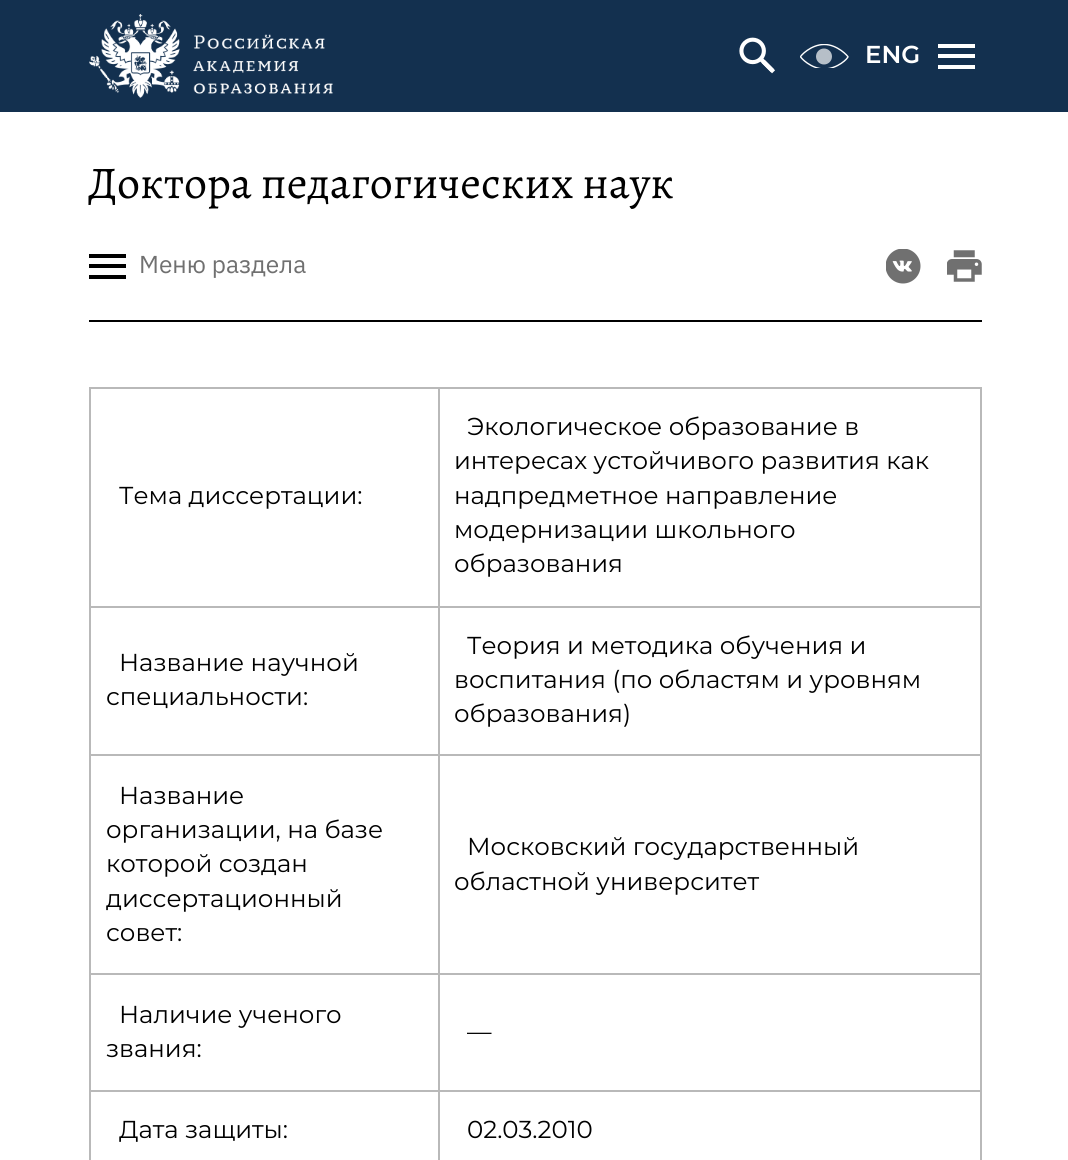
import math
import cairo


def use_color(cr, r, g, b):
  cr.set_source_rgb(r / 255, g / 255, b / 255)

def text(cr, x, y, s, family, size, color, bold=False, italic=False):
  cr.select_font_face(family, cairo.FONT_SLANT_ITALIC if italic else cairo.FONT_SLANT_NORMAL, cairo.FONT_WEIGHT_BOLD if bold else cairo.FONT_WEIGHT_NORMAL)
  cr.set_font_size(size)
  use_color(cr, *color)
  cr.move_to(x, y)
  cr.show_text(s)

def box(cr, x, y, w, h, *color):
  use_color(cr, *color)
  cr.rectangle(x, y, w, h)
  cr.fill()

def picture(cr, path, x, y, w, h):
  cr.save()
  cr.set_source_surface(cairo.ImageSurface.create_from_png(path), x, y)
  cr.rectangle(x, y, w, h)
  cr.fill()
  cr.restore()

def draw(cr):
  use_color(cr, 255, 255, 255)
  cr.paint()
  box(cr, 0, 0, 1068, 112, 19, 48, 79)
  picture(cr, "img_01.png", 89, 14, 244, 84)
  picture(cr, "img_02.png", 739, 37, 36, 37)
  picture(cr, "img_03.png", 800, 44, 49, 24)
  box(cr, 938, 54, 37, 4, 255, 255, 255)
  box(cr, 938, 44, 37, 4, 255, 255, 255)
  box(cr, 938, 65, 37, 4, 255, 255, 255)
  box(cr, 89, 320, 893, 2, 0, 0, 0)
  box(cr, 89, 264, 37, 4, 0, 0, 0)
  box(cr, 89, 254, 37, 4, 0, 0, 0)
  box(cr, 89, 275, 37, 4, 0, 0, 0)
  picture(cr, "img_04.png", 886, 249, 35, 35)
  picture(cr, "img_05.png", 947, 250, 35, 32)
  box(cr, 438, 387, 544, 2, 185, 185, 185)
  box(cr, 438, 606, 544, 2, 185, 185, 185)
  box(cr, 438, 754, 544, 2, 185, 185, 185)
  box(cr, 438, 973, 544, 2, 185, 185, 185)
  box(cr, 438, 1090, 544, 2, 185, 185, 185)
  box(cr, 438, 1090, 2, 70, 185, 185, 185)
  box(cr, 89, 1090, 350, 2, 185, 185, 185)
  box(cr, 438, 973, 2, 119, 185, 185, 185)
  box(cr, 89, 973, 350, 2, 185, 185, 185)
  box(cr, 438, 754, 2, 221, 185, 185, 185)
  box(cr, 89, 754, 350, 2, 185, 185, 185)
  box(cr, 438, 606, 2, 150, 185, 185, 185)
  box(cr, 89, 606, 350, 2, 185, 185, 185)
  box(cr, 438, 387, 2, 220, 185, 185, 185)
  box(cr, 89, 387, 350, 2, 185, 185, 185)
  box(cr, 89, 1090, 2, 70, 185, 185, 185)
  box(cr, 89, 973, 2, 119, 185, 185, 185)
  box(cr, 89, 754, 2, 221, 185, 185, 185)
  box(cr, 89, 606, 2, 150, 185, 185, 185)
  box(cr, 89, 387, 2, 220, 185, 185, 185)
  box(cr, 980, 1090, 2, 70, 185, 185, 185)
  box(cr, 980, 973, 2, 119, 185, 185, 185)
  box(cr, 980, 754, 2, 221, 185, 185, 185)
  box(cr, 980, 606, 2, 150, 185, 185, 185)
  box(cr, 980, 387, 2, 220, 185, 185, 185)
  text(cr, 865, 63, "ENG", "Montserrat SemiBold", 24.5, (255, 255, 255))
  text(cr, 88, 198, "Доктора педагогических наук", "Alegreya", 45.5, (0, 0, 0))
  text(cr, 139, 273, "Меню раздела", "IBM Plex Sans", 24.5, (112, 112, 112))
  text(cr, 119, 504, "Тема диссертации:", "Montserrat", 24.5, (0, 0, 0))
  text(cr, 467, 435, "Экологическое образование в", "Montserrat", 24.5, (0, 0, 0))
  text(cr, 454, 469, "интересах устойчивого развития как", "Montserrat", 24.5, (0, 0, 0))
  text(cr, 454, 504, "надпредметное направление", "Montserrat", 24.5, (0, 0, 0))
  text(cr, 454, 538, "модернизации школьного", "Montserrat", 24.5, (0, 0, 0))
  text(cr, 454, 572, "образования", "Montserrat", 24.5, (0, 0, 0))
  text(cr, 119, 671, "Название научной", "Montserrat", 24.5, (0, 0, 0))
  text(cr, 106, 705, "специальности:", "Montserrat", 24.5, (0, 0, 0))
  text(cr, 467, 654, "Теория и методика обучения и", "Montserrat", 24.5, (0, 0, 0))
  text(cr, 454, 688, "воспитания (по областям и уровням", "Montserrat", 24.5, (0, 0, 0))
  text(cr, 454, 722, "образования)", "Montserrat", 24.5, (0, 0, 0))
  text(cr, 119, 804, "Название", "Montserrat", 24.5, (0, 0, 0))
  text(cr, 106, 838, "организации, на базе", "Montserrat", 24.5, (0, 0, 0))
  text(cr, 106, 872, "которой создан", "Montserrat", 24.5, (0, 0, 0))
  text(cr, 106, 907, "диссертационный", "Montserrat", 24.5, (0, 0, 0))
  text(cr, 106, 941, "совет:", "Montserrat", 24.5, (0, 0, 0))
  text(cr, 467, 855, "Московский государственный", "Montserrat", 24.5, (0, 0, 0))
  text(cr, 454, 890, "областной университет", "Montserrat", 24.5, (0, 0, 0))
  text(cr, 119, 1023, "Наличие ученого", "Montserrat", 24.5, (0, 0, 0))
  text(cr, 106, 1057, "звания:", "Montserrat", 24.5, (0, 0, 0))
  text(cr, 467, 1040, "—", "Montserrat", 24.5, (0, 0, 0))
  text(cr, 119, 1138, "Дата защиты:", "Montserrat", 24.5, (0, 0, 0))
  text(cr, 467, 1138, "02.03.2010", "Montserrat", 24.5, (0, 0, 0))


surface = cairo.ImageSurface(cairo.FORMAT_RGB24, 1068, 1160)
cr = cairo.Context(surface)
options = cairo.FontOptions()
options.set_hint_metrics(cairo.HINT_METRICS_OFF)
options.set_hint_style(cairo.HINT_STYLE_NONE)
cr.set_font_options(options)
cr.set_miter_limit(4)
draw(cr)
surface.write_to_png("out.png")
